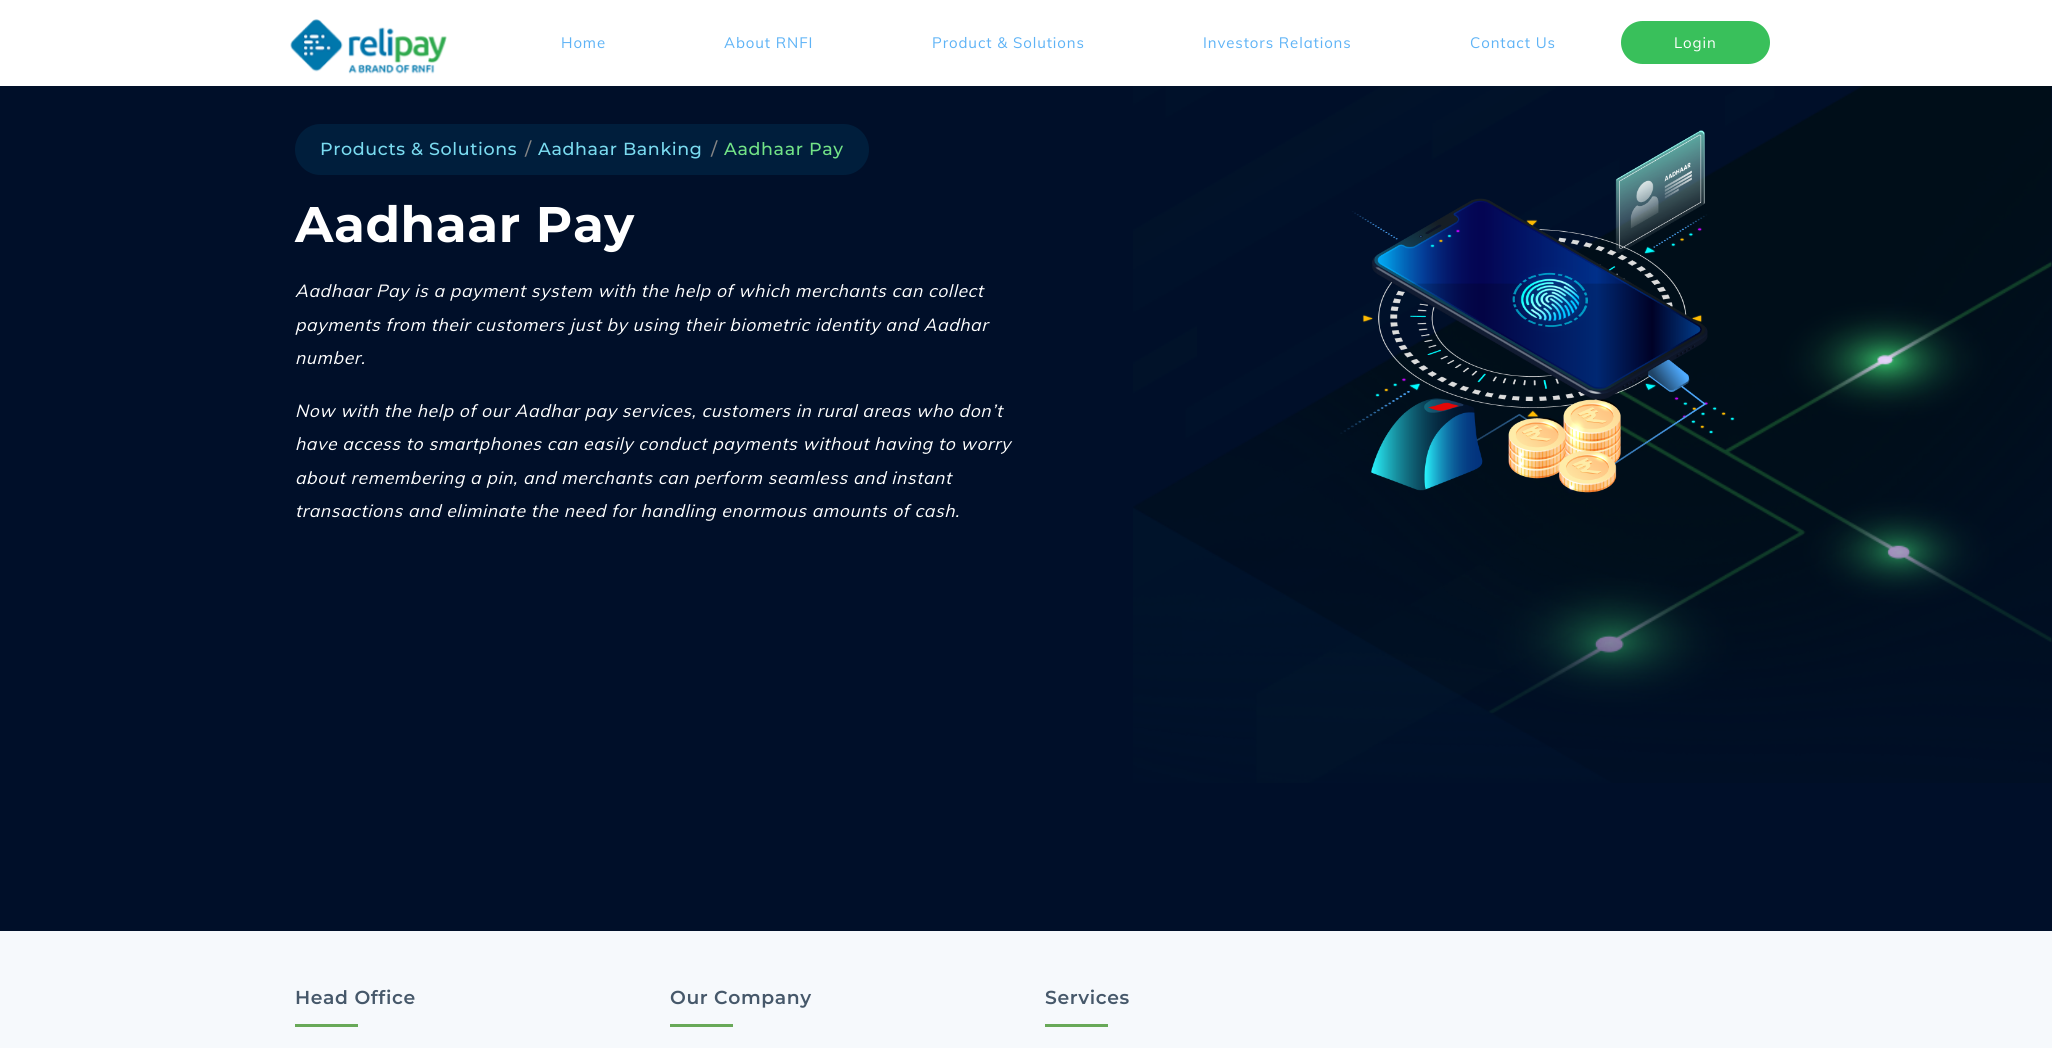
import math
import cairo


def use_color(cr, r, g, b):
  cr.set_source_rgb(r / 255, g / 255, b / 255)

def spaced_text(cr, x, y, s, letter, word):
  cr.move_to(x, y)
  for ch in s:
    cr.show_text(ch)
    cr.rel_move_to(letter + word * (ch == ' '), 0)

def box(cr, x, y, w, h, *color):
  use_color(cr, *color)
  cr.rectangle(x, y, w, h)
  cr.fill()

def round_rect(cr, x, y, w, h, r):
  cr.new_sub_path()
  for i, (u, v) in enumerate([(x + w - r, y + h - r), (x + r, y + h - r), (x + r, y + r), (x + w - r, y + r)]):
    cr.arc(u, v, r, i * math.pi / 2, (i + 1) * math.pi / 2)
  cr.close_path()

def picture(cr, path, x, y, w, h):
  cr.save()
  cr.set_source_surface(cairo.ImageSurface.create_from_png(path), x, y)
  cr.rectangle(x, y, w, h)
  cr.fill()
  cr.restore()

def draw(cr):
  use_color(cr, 0, 15, 41)
  cr.paint()
  box(cr, 0, 0, 2052, 86, 255, 255, 255)
  picture(cr, "img_01.png", 290, 19, 157, 55)
  use_color(cr, 57, 192, 91)
  round_rect(cr, 1621, 21, 149, 43, 21.5)
  cr.fill()
  picture(cr, "img_02.png", 1133, 86, 919, 697)
  use_color(cr, 0, 30, 60)
  round_rect(cr, 295, 124, 574, 51, 25.5)
  cr.fill()
  picture(cr, "img_03.png", 1340, 130, 395, 363)
  box(cr, 0, 931, 2052, 117, 246, 249, 252)
  box(cr, 295, 1024, 63, 3, 104, 169, 88)
  box(cr, 670, 1024, 63, 3, 104, 169, 88)
  box(cr, 1045, 1024, 63, 3, 104, 169, 88)
  cr.select_font_face("Muli")
  cr.set_font_size(15)
  use_color(cr, 94, 179, 246)
  spaced_text(cr, 561, 48, "Home", 0.9, 0)
  spaced_text(cr, 724, 48, "About RNFI", 0.9, 0)
  spaced_text(cr, 932, 48, "Product & Solutions", 0.9, 0)
  spaced_text(cr, 1203, 48, "Investors Relations", 0.9, 0)
  spaced_text(cr, 1470, 48, "Contact Us", 0.9, 0)
  use_color(cr, 255, 255, 255)
  spaced_text(cr, 1674, 48, "Login", 0.9, 0)
  cr.select_font_face("Montserrat Medium")
  cr.set_font_size(17.5)
  use_color(cr, 122, 219, 240)
  spaced_text(cr, 320, 155, "Products & Solutions", 0.62, 0)
  use_color(cr, 133, 133, 133)
  spaced_text(cr, 525, 155, "/", 0.62, 0)
  use_color(cr, 122, 219, 240)
  spaced_text(cr, 538, 155, "Aadhaar Banking", 0.62, 0)
  use_color(cr, 133, 133, 133)
  spaced_text(cr, 711, 155, "/", 0.62, 0)
  use_color(cr, 114, 227, 135)
  spaced_text(cr, 724, 155, "Aadhaar Pay", 0.62, 0)
  cr.select_font_face("Montserrat", cairo.FONT_SLANT_NORMAL, cairo.FONT_WEIGHT_BOLD)
  cr.set_font_size(50)
  use_color(cr, 255, 255, 255)
  spaced_text(cr, 295, 242, "Aadhaar Pay", 0.62, 0)
  cr.select_font_face("Muli", cairo.FONT_SLANT_ITALIC)
  cr.set_font_size(17.5)
  spaced_text(cr, 295, 297, "Aadhaar Pay is a payment system with the help of which merchants can collect", 0.62, 0)
  spaced_text(cr, 295, 331, "payments from their customers just by using their biometric identity and Aadhar", 0.62, 0)
  spaced_text(cr, 295, 364, "number.", 0.62, 0)
  spaced_text(cr, 295, 417, "Now with the help of our Aadhar pay services, customers in rural areas who don’t", 0.62, 0)
  spaced_text(cr, 295, 450, "have access to smartphones can easily conduct payments without having to worry", 0.62, 0)
  spaced_text(cr, 295, 484, "about remembering a pin, and merchants can perform seamless and instant", 0.62, 0)
  spaced_text(cr, 295, 517, "transactions and eliminate the need for handling enormous amounts of cash.", 0.62, 0)
  cr.select_font_face("Montserrat SemiBold")
  cr.set_font_size(18.75)
  use_color(cr, 70, 88, 106)
  spaced_text(cr, 295, 1004, "Head Office", 0.62, 0)
  spaced_text(cr, 670, 1004, "Our Company", 0.62, 0)
  spaced_text(cr, 1045, 1004, "Services", 0.62, 0)


surface = cairo.ImageSurface(cairo.FORMAT_RGB24, 2052, 1048)
cr = cairo.Context(surface)
options = cairo.FontOptions()
options.set_hint_metrics(cairo.HINT_METRICS_OFF)
options.set_hint_style(cairo.HINT_STYLE_NONE)
cr.set_font_options(options)
cr.set_miter_limit(4)
draw(cr)
surface.write_to_png("out.png")
